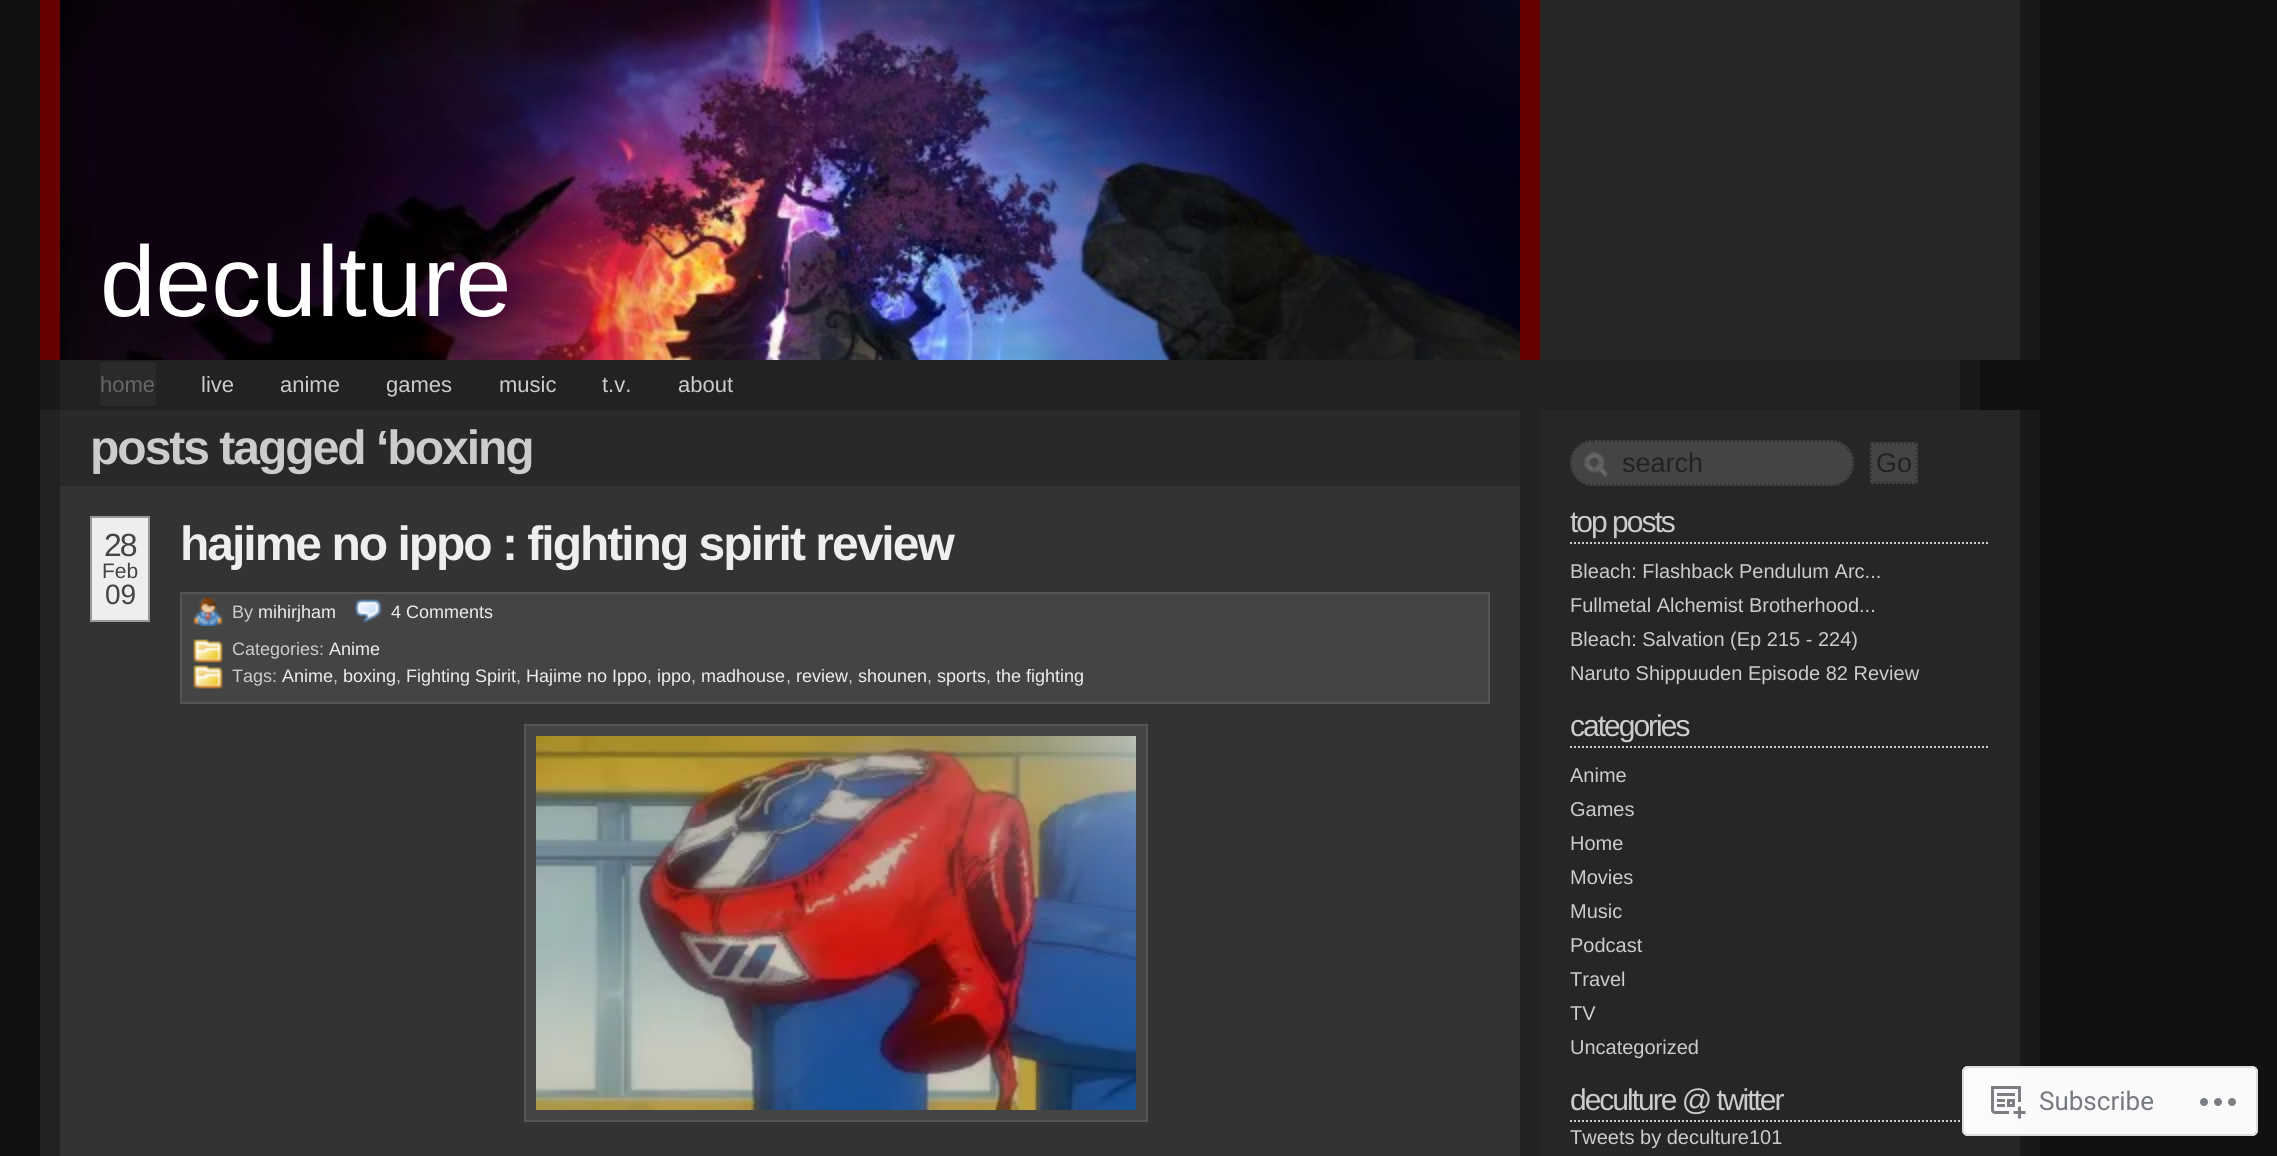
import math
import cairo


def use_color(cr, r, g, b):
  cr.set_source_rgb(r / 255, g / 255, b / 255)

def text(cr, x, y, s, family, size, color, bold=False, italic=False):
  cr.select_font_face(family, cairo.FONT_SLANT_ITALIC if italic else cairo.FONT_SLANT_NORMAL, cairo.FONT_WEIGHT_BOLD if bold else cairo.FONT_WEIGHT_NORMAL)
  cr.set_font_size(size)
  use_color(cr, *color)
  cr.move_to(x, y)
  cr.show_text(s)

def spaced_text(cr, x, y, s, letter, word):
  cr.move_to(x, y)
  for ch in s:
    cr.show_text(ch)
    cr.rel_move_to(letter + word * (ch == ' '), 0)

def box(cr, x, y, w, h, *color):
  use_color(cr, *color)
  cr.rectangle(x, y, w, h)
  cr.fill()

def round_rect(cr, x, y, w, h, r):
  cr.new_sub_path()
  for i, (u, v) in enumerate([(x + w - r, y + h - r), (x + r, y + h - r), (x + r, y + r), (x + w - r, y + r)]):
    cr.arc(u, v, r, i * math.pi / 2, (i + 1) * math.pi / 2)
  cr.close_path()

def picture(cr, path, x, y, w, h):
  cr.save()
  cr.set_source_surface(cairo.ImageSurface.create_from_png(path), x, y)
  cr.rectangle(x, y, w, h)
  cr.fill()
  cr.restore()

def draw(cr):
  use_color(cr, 17, 17, 17)
  cr.paint()
  picture(cr, "img_01.png", 60, 0, 1460, 360)
  box(cr, 1520, 0, 20, 360, 102, 0, 0)
  box(cr, 40, 0, 20, 360, 102, 0, 0)
  box(cr, 1540, 0, 480, 360, 38, 38, 38)
  box(cr, 2020, 0, 20, 360, 25, 25, 25)
  box(cr, 60, 360, 1900, 50, 34, 34, 34)
  box(cr, 1960, 360, 20, 50, 25, 25, 25)
  box(cr, 40, 360, 20, 50, 25, 25, 25)
  box(cr, 100, 362, 56, 44, 42, 42, 42)
  box(cr, 60, 486, 1460, 670, 51, 51, 51)
  box(cr, 1520, 410, 20, 746, 34, 34, 34)
  box(cr, 40, 410, 20, 746, 34, 34, 34)
  box(cr, 60, 410, 1460, 76, 41, 41, 41)
  use_color(cr, 238, 238, 238)
  cr.rectangle(91, 517, 58, 104)
  cr.fill_preserve()
  use_color(cr, 153, 153, 153)
  cr.stroke()
  use_color(cr, 68, 68, 68)
  cr.rectangle(181, 593, 1308, 110)
  cr.fill_preserve()
  use_color(cr, 85, 85, 85)
  cr.stroke()
  picture(cr, "img_02.png", 193, 598, 30, 28)
  picture(cr, "img_03.png", 354, 599, 29, 24)
  picture(cr, "img_04.png", 193, 639, 30, 24)
  picture(cr, "img_04.png", 193, 665, 30, 24)
  use_color(cr, 68, 68, 68)
  cr.rectangle(525, 725, 622, 396)
  cr.fill_preserve()
  use_color(cr, 85, 85, 85)
  cr.stroke()
  picture(cr, "img_05.png", 536, 736, 600, 374)
  box(cr, 1540, 410, 480, 746, 38, 38, 38)
  box(cr, 2020, 410, 20, 746, 25, 25, 25)
  use_color(cr, 68, 68, 68)
  round_rect(cr, 1570, 440, 284, 46, 23)
  cr.fill()
  picture(cr, "img_06.png", 1583, 451, 25, 26)
  cr.new_path()
  cr.move_to(1593, 441)
  cr.line_to(1831, 441)
  cr.curve_to(1843, 441, 1853, 451, 1853, 463)
  cr.curve_to(1853, 475, 1843, 485, 1831, 485)
  cr.line_to(1593, 485)
  cr.curve_to(1581, 485, 1571, 475, 1571, 463)
  cr.curve_to(1571, 451, 1581, 441, 1593, 441)
  cr.close_path()
  use_color(cr, 51, 51, 51)
  cr.set_dash([2, 2])
  cr.stroke()
  box(cr, 1870, 442, 48, 42, 68, 68, 68)
  cr.new_path()
  cr.move_to(1870, 443)
  cr.line_to(1918, 443)
  cr.move_to(1917, 442)
  cr.line_to(1917, 484)
  cr.move_to(1870, 483)
  cr.line_to(1918, 483)
  cr.move_to(1871, 442)
  cr.line_to(1871, 484)
  use_color(cr, 51, 51, 51)
  cr.stroke()
  cr.new_path()
  cr.move_to(1570, 543)
  cr.line_to(1990, 543)
  use_color(cr, 204, 204, 204)
  cr.stroke()
  cr.new_path()
  cr.move_to(1570, 747)
  cr.line_to(1990, 747)
  cr.stroke()
  cr.new_path()
  cr.move_to(1570, 1121)
  cr.line_to(1990, 1121)
  cr.stroke()
  cr.set_source_rgba(1, 1, 1, 0.98)
  round_rect(cr, 1962, 1066, 296, 70, 6)
  cr.fill()
  round_rect(cr, 1963, 1067, 294, 68, 5)
  cr.set_source_rgba(0.863, 0.863, 0.871, 0.98)
  cr.set_dash([])
  cr.stroke()
  picture(cr, "img_07.png", 1991, 1086, 35, 33)
  picture(cr, "img_08.png", 2200, 1098, 36, 8)
  text(cr, 100, 316, "deculture", "Liberation Sans", 100, (255, 255, 255))
  text(cr, 100, 392, "home", "Liberation Sans", 22, (102, 102, 102))
  text(cr, 201, 392, "live", "Liberation Sans", 22, (204, 204, 204))
  text(cr, 280, 392, "anime", "Liberation Sans", 22, (204, 204, 204))
  text(cr, 386, 392, "games", "Liberation Sans", 22, (204, 204, 204))
  text(cr, 499, 392, "music", "Liberation Sans", 22, (204, 204, 204))
  text(cr, 602, 392, "t.v.", "Liberation Sans", 22, (204, 204, 204))
  text(cr, 678, 392, "about", "Liberation Sans", 22, (204, 204, 204))
  cr.select_font_face("Liberation Sans", cairo.FONT_SLANT_NORMAL, cairo.FONT_WEIGHT_BOLD)
  cr.set_font_size(48)
  spaced_text(cr, 90, 464, "posts tagged ‘boxing", -2, 0)
  cr.select_font_face("Liberation Sans")
  cr.set_font_size(32)
  use_color(cr, 68, 68, 68)
  spaced_text(cr, 104, 556, "28", -2, 0)
  text(cr, 102, 578, "Feb", "Liberation Sans", 21, (68, 68, 68))
  text(cr, 105, 604, "09", "Liberation Sans", 28, (68, 68, 68))
  cr.select_font_face("Liberation Sans", cairo.FONT_SLANT_NORMAL, cairo.FONT_WEIGHT_BOLD)
  cr.set_font_size(48)
  use_color(cr, 238, 238, 238)
  spaced_text(cr, 180, 560, "hajime no ippo : fighting spirit review", -2, 0)
  text(cr, 232, 618, "By", "Liberation Sans", 18, (204, 204, 204))
  text(cr, 258, 618, "mihirjham", "Liberation Sans", 18, (238, 238, 238))
  text(cr, 391, 618, "4 Comments", "Liberation Sans", 18, (238, 238, 238))
  text(cr, 232, 655, "Categories:", "Liberation Sans", 18, (204, 204, 204))
  text(cr, 329, 655, "Anime", "Liberation Sans", 18, (238, 238, 238))
  text(cr, 232, 682, "Tags:", "Liberation Sans", 18, (204, 204, 204))
  text(cr, 282, 682, "Anime", "Liberation Sans", 18, (238, 238, 238))
  text(cr, 333, 682, ",", "Liberation Sans", 18, (204, 204, 204))
  text(cr, 343, 682, "boxing", "Liberation Sans", 18, (238, 238, 238))
  text(cr, 396, 682, ",", "Liberation Sans", 18, (204, 204, 204))
  text(cr, 406, 682, "Fighting Spirit", "Liberation Sans", 18, (238, 238, 238))
  text(cr, 516, 682, ",", "Liberation Sans", 18, (204, 204, 204))
  text(cr, 526, 682, "Hajime no Ippo", "Liberation Sans", 18, (238, 238, 238))
  text(cr, 647, 682, ",", "Liberation Sans", 18, (204, 204, 204))
  text(cr, 657, 682, "ippo", "Liberation Sans", 18, (238, 238, 238))
  text(cr, 691, 682, ",", "Liberation Sans", 18, (204, 204, 204))
  text(cr, 701, 682, "madhouse", "Liberation Sans", 18, (238, 238, 238))
  text(cr, 786, 682, ",", "Liberation Sans", 18, (204, 204, 204))
  text(cr, 796, 682, "review", "Liberation Sans", 18, (238, 238, 238))
  text(cr, 848, 682, ",", "Liberation Sans", 18, (204, 204, 204))
  text(cr, 858, 682, "shounen", "Liberation Sans", 18, (238, 238, 238))
  text(cr, 927, 682, ",", "Liberation Sans", 18, (204, 204, 204))
  text(cr, 937, 682, "sports", "Liberation Sans", 18, (238, 238, 238))
  text(cr, 986, 682, ",", "Liberation Sans", 18, (204, 204, 204))
  text(cr, 996, 682, "the fighting", "Liberation Sans", 18, (238, 238, 238))
  text(cr, 1622, 472, "search", "Liberation Sans", 27, (34, 34, 34))
  text(cr, 1876, 472, "Go", "Liberation Sans", 27, (34, 34, 34))
  cr.set_font_size(30)
  use_color(cr, 204, 204, 204)
  spaced_text(cr, 1570, 532, "top posts", -2, 0)
  text(cr, 1570, 578, "Bleach: Flashback Pendulum Arc...", "Liberation Sans", 20, (204, 204, 204))
  text(cr, 1570, 612, "Fullmetal Alchemist Brotherhood...", "Liberation Sans", 20, (204, 204, 204))
  text(cr, 1570, 646, "Bleach: Salvation (Ep 215 - 224)", "Liberation Sans", 20, (204, 204, 204))
  text(cr, 1570, 680, "Naruto Shippuuden Episode 82 Review", "Liberation Sans", 20, (204, 204, 204))
  cr.set_font_size(30)
  spaced_text(cr, 1570, 736, "categories", -2, 0)
  text(cr, 1570, 782, "Anime", "Liberation Sans", 20, (204, 204, 204))
  text(cr, 1570, 816, "Games", "Liberation Sans", 20, (204, 204, 204))
  text(cr, 1570, 850, "Home", "Liberation Sans", 20, (204, 204, 204))
  text(cr, 1570, 884, "Movies", "Liberation Sans", 20, (204, 204, 204))
  text(cr, 1570, 918, "Music", "Liberation Sans", 20, (204, 204, 204))
  text(cr, 1570, 952, "Podcast", "Liberation Sans", 20, (204, 204, 204))
  text(cr, 1570, 986, "Travel", "Liberation Sans", 20, (204, 204, 204))
  text(cr, 1570, 1020, "TV", "Liberation Sans", 20, (204, 204, 204))
  text(cr, 1570, 1054, "Uncategorized", "Liberation Sans", 20, (204, 204, 204))
  cr.set_font_size(30)
  spaced_text(cr, 1570, 1110, "deculture @ twitter", -2, 0)
  text(cr, 1570, 1144, "Tweets by deculture101", "Liberation Sans", 20, (204, 204, 204))
  text(cr, 2039, 1110, "Subscribe", "Roboto", 26, (118, 122, 128))


surface = cairo.ImageSurface(cairo.FORMAT_RGB24, 2277, 1156)
cr = cairo.Context(surface)
options = cairo.FontOptions()
options.set_hint_metrics(cairo.HINT_METRICS_OFF)
options.set_hint_style(cairo.HINT_STYLE_NONE)
cr.set_font_options(options)
cr.set_miter_limit(4)
draw(cr)
surface.write_to_png("out.png")
